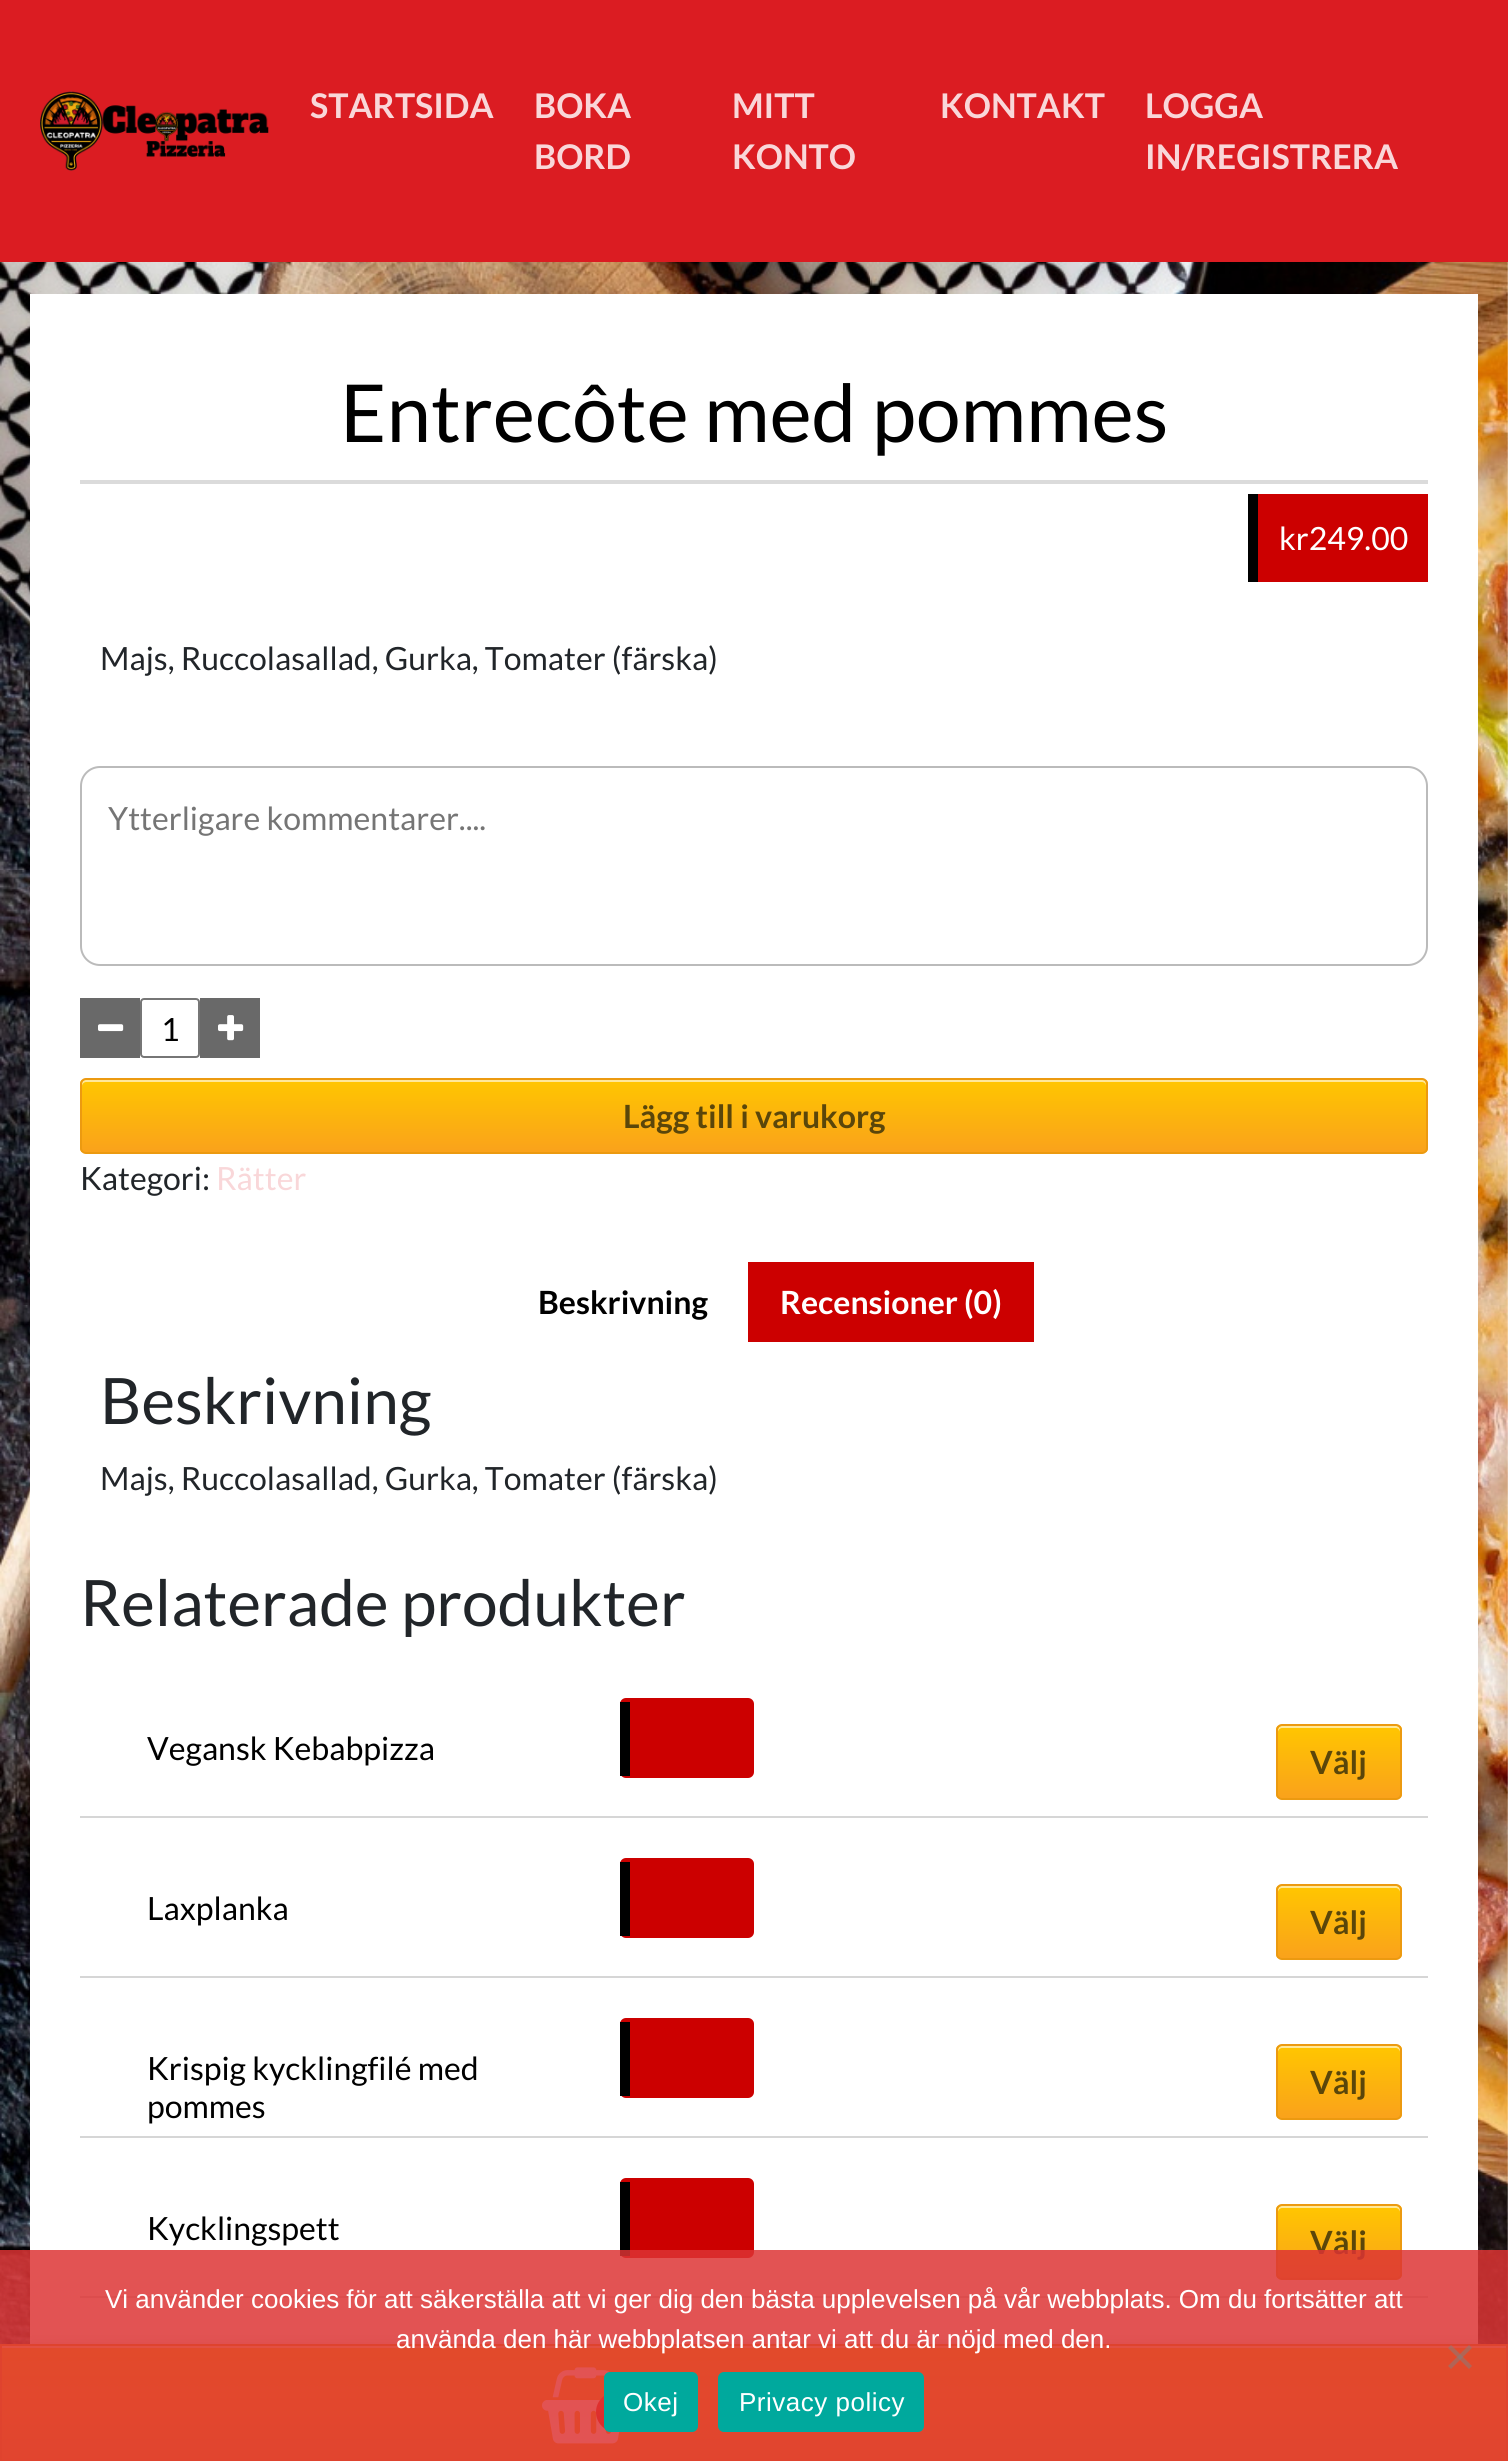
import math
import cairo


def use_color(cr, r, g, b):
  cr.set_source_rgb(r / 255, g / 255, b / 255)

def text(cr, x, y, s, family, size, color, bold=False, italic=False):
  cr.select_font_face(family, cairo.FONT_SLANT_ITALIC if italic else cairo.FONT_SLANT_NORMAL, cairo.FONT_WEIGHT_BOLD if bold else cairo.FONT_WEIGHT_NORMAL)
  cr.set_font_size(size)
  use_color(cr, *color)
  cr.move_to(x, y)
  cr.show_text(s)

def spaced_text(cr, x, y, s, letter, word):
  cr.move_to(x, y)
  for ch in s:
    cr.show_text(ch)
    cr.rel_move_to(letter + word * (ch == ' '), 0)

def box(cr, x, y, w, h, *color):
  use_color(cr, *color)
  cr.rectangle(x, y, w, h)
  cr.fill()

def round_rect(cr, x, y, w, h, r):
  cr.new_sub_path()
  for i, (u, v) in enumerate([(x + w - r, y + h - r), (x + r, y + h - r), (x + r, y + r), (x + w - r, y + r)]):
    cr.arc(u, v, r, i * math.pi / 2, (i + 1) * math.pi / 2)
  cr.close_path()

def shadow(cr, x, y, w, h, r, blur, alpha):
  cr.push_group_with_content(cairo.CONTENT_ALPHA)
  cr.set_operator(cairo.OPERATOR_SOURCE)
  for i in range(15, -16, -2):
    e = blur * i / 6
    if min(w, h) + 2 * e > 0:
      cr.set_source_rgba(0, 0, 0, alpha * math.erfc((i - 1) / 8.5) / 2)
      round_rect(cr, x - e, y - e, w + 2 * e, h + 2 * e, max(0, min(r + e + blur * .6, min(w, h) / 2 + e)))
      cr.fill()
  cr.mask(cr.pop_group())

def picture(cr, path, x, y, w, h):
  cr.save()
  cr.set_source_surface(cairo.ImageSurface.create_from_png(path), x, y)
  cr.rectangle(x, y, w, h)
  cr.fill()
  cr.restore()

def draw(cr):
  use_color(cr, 255, 255, 255)
  cr.paint()
  picture(cr, "img_01.png", 0, 262, 1508, 2082)
  box(cr, 0, 0, 1508, 262, 219, 28, 34)
  picture(cr, "img_02.png", 40, 91, 229, 80)
  box(cr, 30, 294, 1448, 2050, 255, 255, 255)
  use_color(cr, 187, 187, 187)
  shadow(cr, 32, 2350, 1448, 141, 0, 10, 1)
  gradient = cairo.LinearGradient(754, 2460, 754, 2346)
  gradient.add_color_stop_rgba(0, 0.98, 0.635, 0.106, 1)
  gradient.add_color_stop_rgba(1, 1, 0.776, 0, 1)
  cr.set_source(gradient)
  cr.rectangle(2, 2348, 1504, 112)
  cr.fill()
  box(cr, 2, 2346, 1504, 2, 255, 232, 153)
  cr.rectangle(1, 2345, 1506, 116)
  use_color(cr, 236, 154, 16)
  cr.stroke()
  picture(cr, "img_03.png", 542, 2367, 78, 77)
  gradient = cairo.LinearGradient(616, 2392, 616, 2432)
  gradient.add_color_stop_rgba(0, 1, 0.188, 0.098, 1)
  gradient.add_color_stop_rgba(1, 0.812, 0.016, 0.016, 1)
  cr.set_source(gradient)
  cr.arc(616, 2412, 20, 0, 2 * math.pi)
  cr.fill()
  box(cr, 80, 480, 1348, 4, 219, 219, 219)
  box(cr, 1258, 494, 170, 88, 204, 0, 0)
  box(cr, 1248, 494, 10, 88, 0, 0, 0)
  round_rect(cr, 81, 767, 1346, 198, 19)
  use_color(cr, 187, 187, 187)
  cr.stroke()
  box(cr, 80, 998, 60, 60, 105, 105, 105)
  picture(cr, "img_04.png", 98, 1024, 26, 8)
  round_rect(cr, 141, 999, 58, 58, 3)
  use_color(cr, 118, 118, 118)
  cr.stroke()
  box(cr, 200, 998, 60, 60, 105, 105, 105)
  picture(cr, "img_05.png", 218, 1015, 26, 26)
  cr.save()
  round_rect(cr, 80, 1078, 1348, 76, 6)
  cr.clip()
  gradient = cairo.LinearGradient(754, 1152, 754, 1080)
  gradient.add_color_stop_rgba(0, 0.98, 0.635, 0.106, 1)
  gradient.add_color_stop_rgba(1, 1, 0.776, 0, 1)
  cr.set_source(gradient)
  cr.rectangle(80, 1080, 1348, 72)
  cr.fill()
  cr.restore()
  use_color(cr, 255, 232, 153)
  cr.new_path()
  cr.move_to(86, 1082)
  cr.line_to(1422, 1082)
  cr.curve_to(1424, 1082, 1426, 1084, 1426, 1086)
  cr.curve_to(1426, 1083, 1426, 1080, 1422, 1080)
  cr.line_to(86, 1080)
  cr.curve_to(82, 1080, 82, 1083, 82, 1086)
  cr.curve_to(82, 1084, 84, 1082, 86, 1082)
  cr.close_path()
  cr.fill()
  round_rect(cr, 81, 1079, 1346, 74, 5)
  use_color(cr, 236, 154, 16)
  cr.stroke()
  box(cr, 748, 1262, 286, 80, 204, 0, 0)
  box(cr, 80, 1816, 1348, 2, 214, 214, 214)
  use_color(cr, 204, 0, 0)
  round_rect(cr, 620, 1698, 134, 80, 6)
  cr.fill()
  box(cr, 620, 1702, 10, 74, 0, 0, 0)
  cr.save()
  round_rect(cr, 1276, 1724, 126, 76, 6)
  cr.clip()
  gradient = cairo.LinearGradient(1339, 1798, 1339, 1726)
  gradient.add_color_stop_rgba(0, 0.98, 0.635, 0.106, 1)
  gradient.add_color_stop_rgba(1, 1, 0.776, 0, 1)
  cr.set_source(gradient)
  cr.rectangle(1276, 1726, 126, 72)
  cr.fill()
  cr.restore()
  use_color(cr, 255, 232, 153)
  cr.new_path()
  cr.move_to(1282, 1728)
  cr.line_to(1396, 1728)
  cr.curve_to(1398, 1728, 1400, 1730, 1400, 1732)
  cr.line_to(1400, 1730)
  cr.curve_to(1400, 1728, 1398, 1726, 1396, 1726)
  cr.line_to(1282, 1726)
  cr.curve_to(1280, 1726, 1278, 1728, 1278, 1730)
  cr.line_to(1278, 1732)
  cr.curve_to(1278, 1730, 1280, 1728, 1282, 1728)
  cr.close_path()
  cr.fill()
  round_rect(cr, 1277, 1725, 124, 74, 5)
  use_color(cr, 236, 154, 16)
  cr.stroke()
  box(cr, 80, 1976, 1348, 2, 214, 214, 214)
  use_color(cr, 204, 0, 0)
  round_rect(cr, 620, 1858, 134, 80, 6)
  cr.fill()
  box(cr, 620, 1862, 10, 74, 0, 0, 0)
  cr.save()
  round_rect(cr, 1276, 1884, 126, 76, 6)
  cr.clip()
  gradient = cairo.LinearGradient(1339, 1958, 1339, 1886)
  gradient.add_color_stop_rgba(0, 0.98, 0.635, 0.106, 1)
  gradient.add_color_stop_rgba(1, 1, 0.776, 0, 1)
  cr.set_source(gradient)
  cr.rectangle(1276, 1886, 126, 72)
  cr.fill()
  cr.restore()
  use_color(cr, 255, 232, 153)
  cr.new_path()
  cr.move_to(1282, 1888)
  cr.line_to(1396, 1888)
  cr.curve_to(1398, 1888, 1400, 1890, 1400, 1892)
  cr.line_to(1400, 1890)
  cr.curve_to(1400, 1888, 1398, 1886, 1396, 1886)
  cr.line_to(1282, 1886)
  cr.curve_to(1280, 1886, 1278, 1888, 1278, 1890)
  cr.line_to(1278, 1892)
  cr.curve_to(1278, 1890, 1280, 1888, 1282, 1888)
  cr.close_path()
  cr.fill()
  round_rect(cr, 1277, 1885, 124, 74, 5)
  use_color(cr, 236, 154, 16)
  cr.stroke()
  box(cr, 80, 2136, 1348, 2, 214, 214, 214)
  use_color(cr, 204, 0, 0)
  round_rect(cr, 620, 2018, 134, 80, 6)
  cr.fill()
  box(cr, 620, 2022, 10, 74, 0, 0, 0)
  cr.save()
  round_rect(cr, 1276, 2044, 126, 76, 6)
  cr.clip()
  gradient = cairo.LinearGradient(1339, 2118, 1339, 2046)
  gradient.add_color_stop_rgba(0, 0.98, 0.635, 0.106, 1)
  gradient.add_color_stop_rgba(1, 1, 0.776, 0, 1)
  cr.set_source(gradient)
  cr.rectangle(1276, 2046, 126, 72)
  cr.fill()
  cr.restore()
  use_color(cr, 255, 232, 153)
  cr.new_path()
  cr.move_to(1282, 2048)
  cr.line_to(1396, 2048)
  cr.curve_to(1398, 2048, 1400, 2050, 1400, 2052)
  cr.line_to(1400, 2050)
  cr.curve_to(1400, 2048, 1398, 2046, 1396, 2046)
  cr.line_to(1282, 2046)
  cr.curve_to(1280, 2046, 1278, 2048, 1278, 2050)
  cr.line_to(1278, 2052)
  cr.curve_to(1278, 2050, 1280, 2048, 1282, 2048)
  cr.close_path()
  cr.fill()
  round_rect(cr, 1277, 2045, 124, 74, 5)
  use_color(cr, 236, 154, 16)
  cr.stroke()
  box(cr, 80, 2296, 1348, 2, 214, 214, 214)
  use_color(cr, 204, 0, 0)
  round_rect(cr, 620, 2178, 134, 80, 6)
  cr.fill()
  box(cr, 620, 2182, 10, 74, 0, 0, 0)
  cr.save()
  round_rect(cr, 1276, 2204, 126, 76, 6)
  cr.clip()
  gradient = cairo.LinearGradient(1339, 2278, 1339, 2206)
  gradient.add_color_stop_rgba(0, 0.98, 0.635, 0.106, 1)
  gradient.add_color_stop_rgba(1, 1, 0.776, 0, 1)
  cr.set_source(gradient)
  cr.rectangle(1276, 2206, 126, 72)
  cr.fill()
  cr.restore()
  use_color(cr, 255, 232, 153)
  cr.new_path()
  cr.move_to(1282, 2208)
  cr.line_to(1396, 2208)
  cr.curve_to(1398, 2208, 1400, 2210, 1400, 2212)
  cr.line_to(1400, 2210)
  cr.curve_to(1400, 2208, 1398, 2206, 1396, 2206)
  cr.line_to(1282, 2206)
  cr.curve_to(1280, 2206, 1278, 2208, 1278, 2210)
  cr.line_to(1278, 2212)
  cr.curve_to(1278, 2210, 1280, 2208, 1282, 2208)
  cr.close_path()
  cr.fill()
  round_rect(cr, 1277, 2205, 124, 74, 5)
  use_color(cr, 236, 154, 16)
  cr.stroke()
  text(cr, 310, 118, "STARTSIDA", "Lato", 34, (249, 215, 217), bold=True)
  text(cr, 534, 118, "BOKA", "Lato", 34, (249, 215, 217), bold=True)
  text(cr, 534, 169, "BORD", "Lato", 34, (249, 215, 217), bold=True)
  text(cr, 732, 118, "MITT", "Lato", 34, (249, 215, 217), bold=True)
  text(cr, 732, 169, "KONTO", "Lato", 34, (249, 215, 217), bold=True)
  text(cr, 940, 118, "KONTAKT", "Lato", 34, (249, 215, 217), bold=True)
  text(cr, 1145, 118, "LOGGA", "Lato", 34, (249, 215, 217), bold=True)
  text(cr, 1145, 169, "IN/REGISTRERA", "Lato", 34, (249, 215, 217), bold=True)
  text(cr, 340, 442, "Entrecôte med pommes", "Lato", 80, (0, 0, 0))
  text(cr, 1279, 550, "kr249.00", "Lato", 32, (255, 255, 255))
  text(cr, 100, 670, "Majs, Ruccolasallad, Gurka, Tomater (färska)", "Lato", 32, (33, 37, 41))
  text(cr, 108, 830, "Ytterligare kommentarer....", "Lato", 32, (117, 117, 117))
  text(cr, 161, 1041, "1", "Lato", 32, (0, 0, 0))
  text(cr, 623, 1128, "Lägg till i varukorg", "Lato", 32, (90, 70, 10), bold=True)
  text(cr, 80, 1190, "Kategori:", "Lato", 32, (33, 37, 41))
  text(cr, 216, 1190, "Rätter", "Lato", 32, (249, 215, 217))
  text(cr, 538, 1314, "Beskrivning", "Lato", 32, (0, 0, 0), bold=True)
  text(cr, 780, 1314, "Recensioner (0)", "Lato", 32, (255, 255, 255), bold=True)
  text(cr, 100, 1424, "Beskrivning", "Lato", 64, (33, 37, 41))
  text(cr, 100, 1490, "Majs, Ruccolasallad, Gurka, Tomater (färska)", "Lato", 32, (33, 37, 41))
  text(cr, 80, 1626, "Relaterade produkter", "Lato", 64, (33, 37, 41))
  text(cr, 147, 1760, "Vegansk Kebabpizza", "Lato", 32, (0, 0, 0))
  text(cr, 1310, 1774, "Välj", "Lato", 32, (90, 70, 10), bold=True)
  text(cr, 147, 1920, "Laxplanka", "Lato", 32, (0, 0, 0))
  text(cr, 1310, 1934, "Välj", "Lato", 32, (90, 70, 10), bold=True)
  text(cr, 147, 2080, "Krispig kycklingfilé med", "Lato", 32, (0, 0, 0))
  text(cr, 147, 2118, "pommes", "Lato", 32, (0, 0, 0))
  text(cr, 1310, 2094, "Välj", "Lato", 32, (90, 70, 10), bold=True)
  text(cr, 147, 2240, "Kycklingspett", "Lato", 32, (0, 0, 0))
  text(cr, 1310, 2254, "Välj", "Lato", 32, (90, 70, 10), bold=True)
  cr.set_source_rgba(0.867, 0.2, 0.2, 0.84)
  cr.rectangle(0, 2250, 1508, 211)
  cr.fill()
  text(cr, 105, 2308, "Vi använder cookies för att säkerställa att vi ger dig den bästa upplevelsen på vår webbplats. Om du fortsätter att", "Liberation Sans", 26, (255, 255, 255))
  text(cr, 396, 2348, "använda den här webbplatsen antar vi att du är nöjd med den.", "Liberation Sans", 26, (255, 255, 255))
  cr.set_source_rgba(0.502, 0.502, 0.502, 0.5)
  cr.new_path()
  cr.move_to(1469, 2345)
  cr.line_to(1472, 2348)
  cr.line_to(1451, 2369)
  cr.line_to(1448, 2366)
  cr.close_path()
  cr.fill()
  cr.new_path()
  cr.move_to(1448, 2348)
  cr.line_to(1451, 2345)
  cr.line_to(1472, 2366)
  cr.line_to(1469, 2369)
  cr.close_path()
  cr.fill()
  use_color(cr, 0, 169, 157)
  round_rect(cr, 604, 2372, 94, 60, 6)
  cr.fill()
  use_color(cr, 255, 255, 255)
  spaced_text(cr, 623, 2411, "Okej", 0.5, 0)
  use_color(cr, 0, 169, 157)
  round_rect(cr, 718, 2372, 206, 60, 6)
  cr.fill()
  use_color(cr, 255, 255, 255)
  spaced_text(cr, 739, 2411, "Privacy policy", 0.5, 0)


surface = cairo.ImageSurface(cairo.FORMAT_RGB24, 1508, 2461)
cr = cairo.Context(surface)
options = cairo.FontOptions()
options.set_hint_metrics(cairo.HINT_METRICS_OFF)
options.set_hint_style(cairo.HINT_STYLE_NONE)
cr.set_font_options(options)
cr.set_miter_limit(4)
draw(cr)
surface.write_to_png("out.png")
